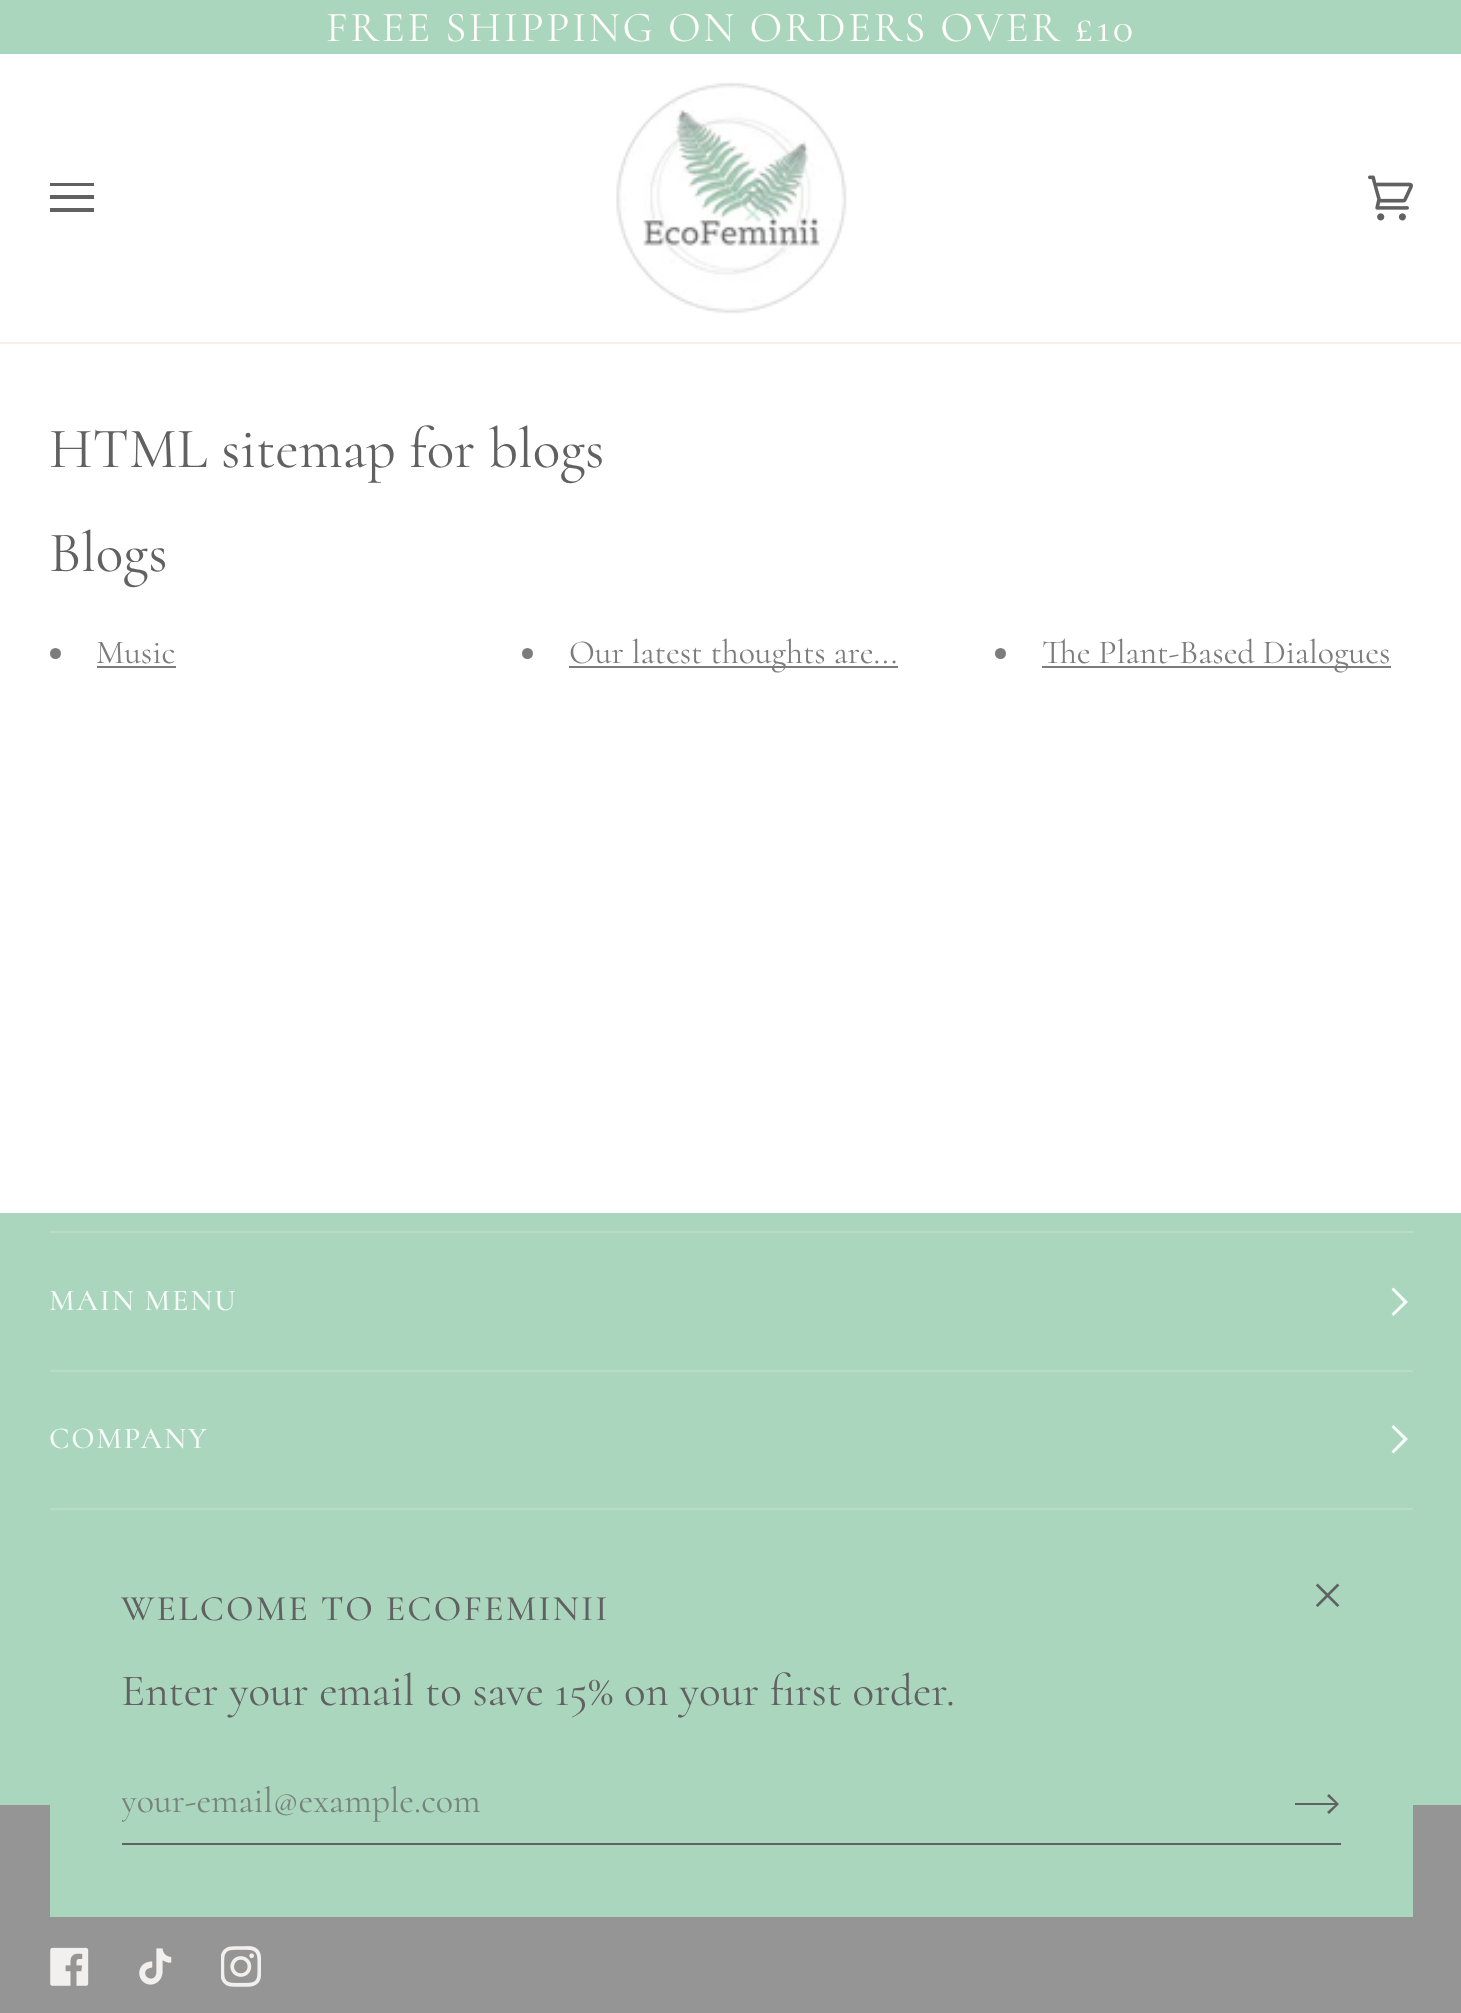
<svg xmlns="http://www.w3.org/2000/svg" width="1461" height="2013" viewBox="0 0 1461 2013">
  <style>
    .t1 { font: 42.75px Cormorant; letter-spacing: 2.55px; fill: #fffcf9; }
    .t2 { font: 57.4px Cormorant; fill: #616161; }
    .t3 { font: 33.75px Cormorant; fill: #7c7c7c; }
    .t4 { font: 500 30.5px Cormorant; letter-spacing: 1.75px; fill: #f7fbf9; }
    .t5 { font: 500 36px Cormorant; letter-spacing: 2.2px; fill: #616161; }
    .t6 { font: 45px Cormorant; fill: #616161; }
    .t7 { font: 36px Cormorant; fill: #77847d; }
  </style>
  <defs>
    <clipPath id="clip1"><rect x="122" y="1778" width="1077" height="45"/></clipPath>
  </defs>
  <rect width="100%" height="100%" fill="#fff"/>
  <rect x="0" y="0" width="1461" height="54" fill="#abd6be"/>
  <text x="326" y="41" class="t1">FREE SHIPPING ON ORDERS OVER £10</text>
  <rect x="0" y="342" width="1461" height="2" fill="#f8f0e7"/>
  <path d="M50 183H94V186H50ZM50 195H94V199H50ZM50 208H94V212H50Z" fill="#616161"/>
  <image x="616" y="82" width="231" height="232" href="images/1.png"/>
  <image x="1368" y="175" width="45" height="46" href="images/2.png"/>
  <text x="49" y="467" class="t2">HTML sitemap for blogs</text>
  <text x="49" y="571" class="t2">Blogs</text>
  <circle cx="55.5" cy="653.5" r="5.5" fill="#7c7c7c"/>
  <text x="96" y="663" class="t3">Music</text>
  <rect x="97" y="666" width="79" height="2" fill="#7c7c7c"/>
  <circle cx="527.5" cy="653.5" r="5.5" fill="#7c7c7c"/>
  <rect x="569" y="666" width="329" height="2" fill="#7c7c7c"/>
  <text x="569" y="663" class="t3">Our latest thoughts are...</text>
  <circle cx="1000.5" cy="653.5" r="5.5" fill="#7c7c7c"/>
  <rect x="1042" y="666" width="349" height="2" fill="#7c7c7c"/>
  <text x="1042" y="663" class="t3">The Plant-Based Dialogues</text>
  <rect x="0" y="1213" width="1461" height="592" fill="#abd6be"/>
  <rect x="50" y="1231" width="1363" height="2" fill="#b8dcc8"/>
  <rect x="50" y="1370" width="1363" height="2" fill="#b8dcc8"/>
  <text x="49" y="1310" class="t4">MAIN MENU</text>
  <path d="M1403.5 1302L1391.5 1289.5L1393.5 1287.5L1408 1302L1393.5 1316L1391.5 1314Z" fill="#f7fbf9" fill-rule="evenodd"/>
  <rect x="50" y="1508" width="1363" height="2" fill="#b8dcc8"/>
  <text x="49" y="1448" class="t4">COMPANY</text>
  <path d="M1403.5 1439L1391.5 1427L1393.5 1425L1408 1439L1393.5 1453.5L1391.5 1451.5Z" fill="#f7fbf9" fill-rule="evenodd"/>
  <rect x="0" y="1805" width="1461" height="208" fill="#959595"/>
  <rect x="50" y="1805" width="1363" height="112" fill="#abd6be"/>
  <text x="121" y="1620" class="t5">WELCOME TO ECOFEMINII</text>
  <image x="1315" y="1583" width="25" height="24" href="images/3.png"/>
  <text x="121" y="1705" class="t6">Enter your email to save 15% on your first order.</text>
  <rect x="122" y="1843" width="1219" height="2" fill="#616161"/>
  <g clip-path="url(#clip1)">
    <text x="121" y="1812" class="t7">your-email@example.com</text>
  </g>
  <path d="M1327 1796L1329 1794L1339 1804L1329 1814L1327 1812L1335 1805H1295V1803H1335Z" fill="#616161"/>
  <image x="50" y="1947" width="39" height="39" href="images/4.png"/>
  <image x="139" y="1948" width="33" height="37" href="images/5.png"/>
  <image x="221" y="1946" width="40" height="41" href="images/6.png"/>
</svg>
